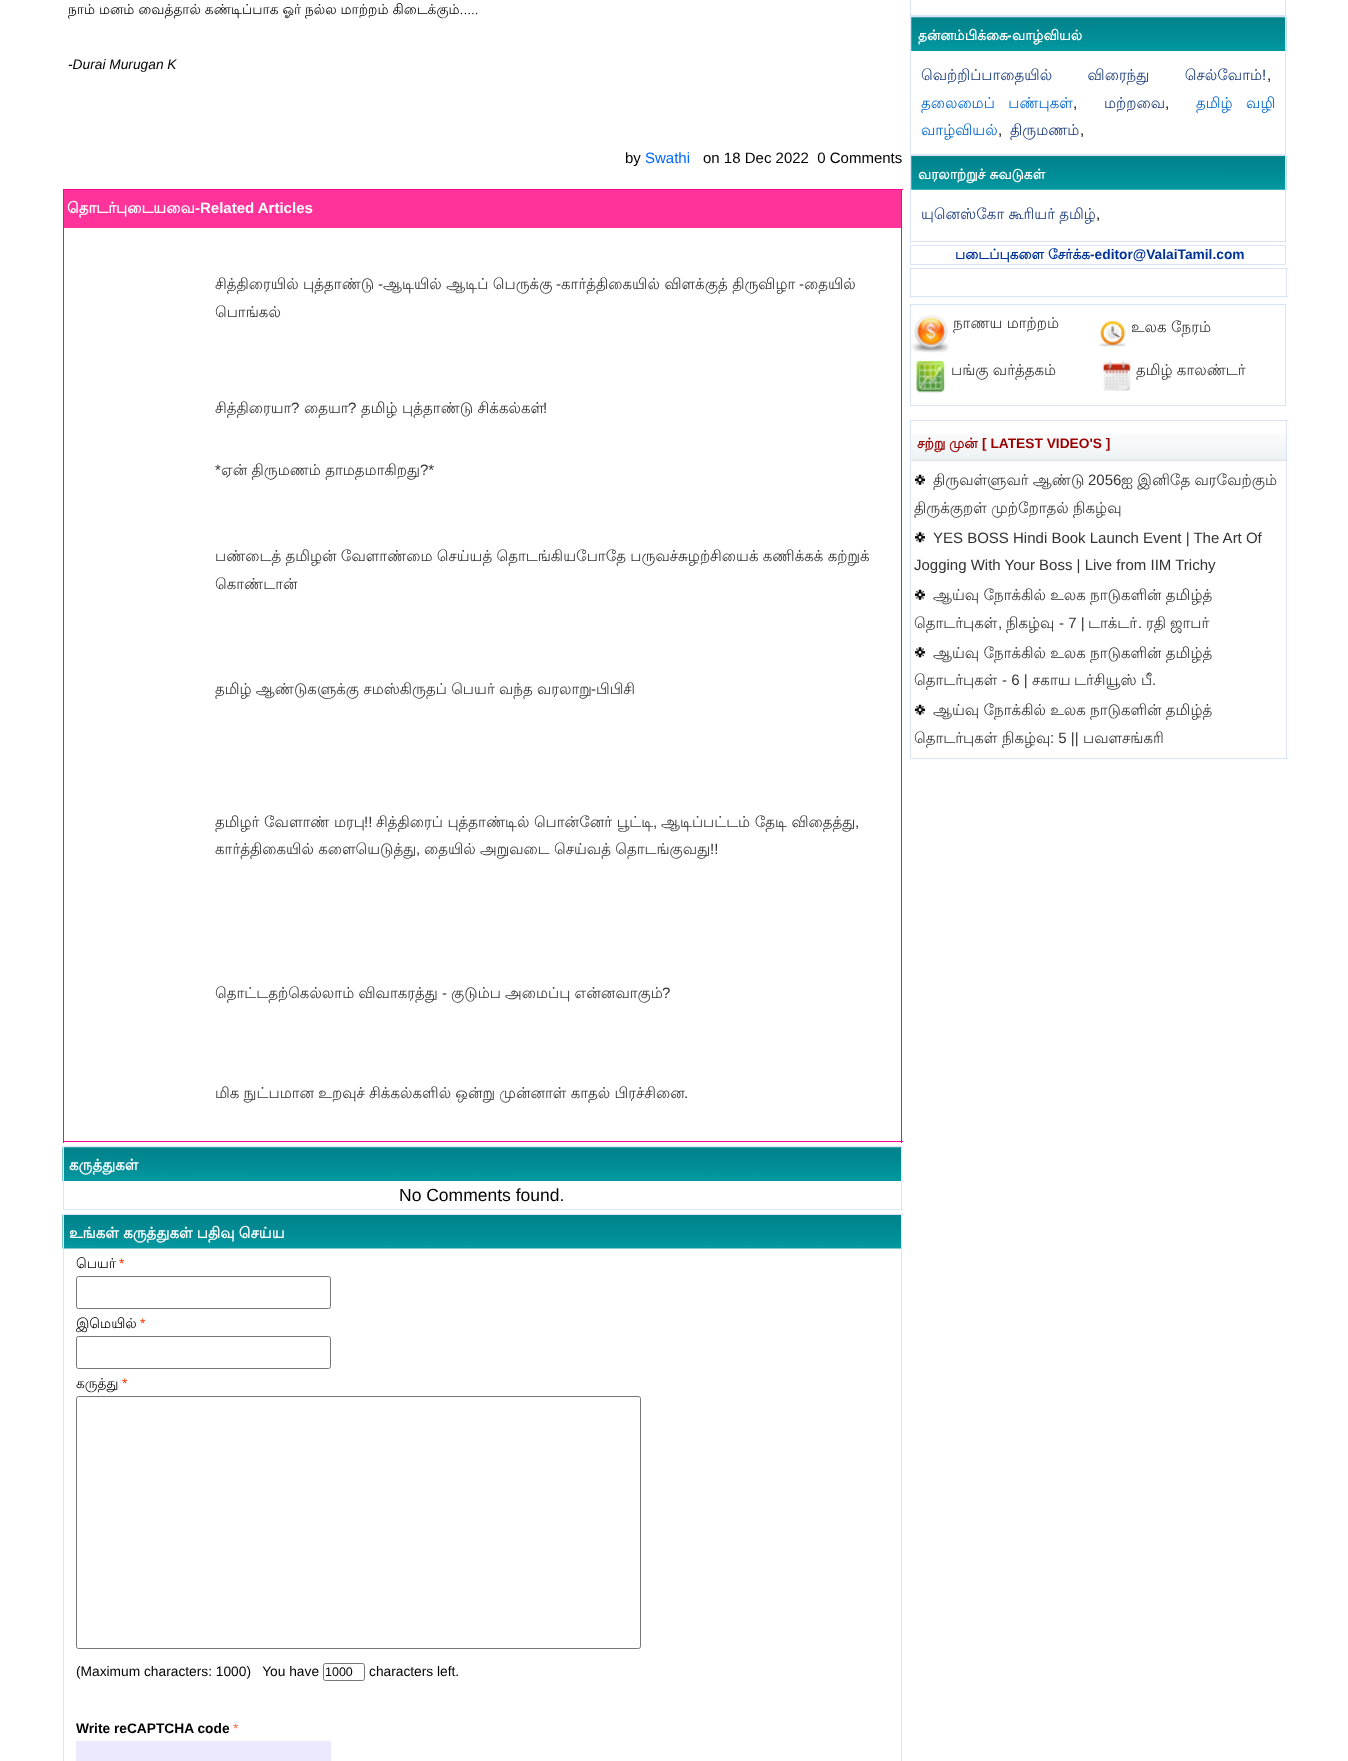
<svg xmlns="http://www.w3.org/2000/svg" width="1348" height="1761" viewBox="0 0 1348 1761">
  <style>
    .t1 { font: 13.75px Lohit Tamil; fill: #000; }
    .t2 { font: italic 13.75px Liberation Sans; fill: #000; }
    .t3 { font: 15px Liberation Sans; fill: #000; }
    .t4 { font: 15px Liberation Sans; fill: #06f; }
    .t5 { font: bold 15px Lohit Tamil; fill: #fff; }
    .t6 { font: bold 15px Liberation Sans; fill: #fff; }
    .t7 { font: 15px Lohit Tamil; fill: #333; }
    .t8 { font: 15px Liberation Sans; fill: #333; }
    .t9 { font: 17.5px Liberation Sans; fill: #000; }
    .t10 { font: 13.75px Liberation Sans; fill: #f30; }
    .t11 { font: 13.75px Liberation Sans; fill: #000; }
    .t12 { font: 12.5px Liberation Sans; fill: #000; }
    .t13 { font: bold 13.75px Liberation Sans; fill: #000; }
    .t14 { font: 13.75px Liberation Sans; fill: #fb6c4c; }
    .t15 { font: bold 13.75px Lohit Tamil; fill: #fff; }
    .t16 { font: bold 13.75px Liberation Sans; fill: #fff; }
    .t17 { font: 15px Lohit Tamil; fill: #16387c; }
    .t18 { font: 15px Liberation Sans; fill: #16387c; }
    .t19 { font: 15px Lohit Tamil; fill: #06c; }
    .t20 { font: bold 13.75px Lohit Tamil; fill: #039; }
    .t21 { font: bold 13.75px Liberation Sans; fill: #039; }
    .t22 { font: bold 13.75px Lohit Tamil; fill: #900; }
    .t23 { font: bold 13.75px Liberation Sans; fill: #900; }
  </style>
  <rect width="100%" height="100%" fill="#fff"/>
  <text x="68" y="14" word-spacing="-0.25" class="t1">நாம் மனம் வைத்தால் கண்டிப்பாக ஓர் நல்ல மாற்றம் கிடைக்கும்.....</text>
  <text x="68" y="69" class="t2">-Durai Murugan K</text>
  <text x="625" y="163" class="t3">by</text>
  <text x="645" y="163" class="t4">Swathi</text>
  <text x="703" y="163" class="t3" xml:space="preserve">on 18 Dec 2022  0 Comments</text>
  <rect x="63" y="189" width="840" height="1" fill="#f09"/>
  <rect x="901" y="189" width="1" height="954" fill="#f09"/>
  <rect x="63" y="1141" width="840" height="1" fill="#f09"/>
  <rect x="63" y="189" width="1" height="954" fill="#f09"/>
  <rect x="64" y="190" width="837" height="38" fill="#f39"/>
  <text x="67" y="213" class="t5">தொடர்புடையவை</text>
  <text x="195" y="213" class="t6">-Related Articles</text>
  <text x="215" y="289" class="t7">சித்திரையில் புத்தாண்டு</text>
  <text x="378" y="289" class="t8">-</text>
  <text x="383" y="289" class="t7">ஆடியில் ஆடிப் பெருக்கு</text>
  <text x="556" y="289" class="t8">-</text>
  <text x="561" y="289" class="t7">கார்த்திகையில் விளக்குத் திருவிழா</text>
  <text x="799" y="289" class="t8">-</text>
  <text x="804" y="289" class="t7">தையில்</text>
  <text x="215" y="317" class="t7">பொங்கல்</text>
  <text x="215" y="413" class="t7">சித்திரையா</text>
  <text x="291" y="413" class="t8">?</text>
  <text x="304" y="413" class="t7">தையா</text>
  <text x="348" y="413" class="t8">?</text>
  <text x="361" y="413" class="t7">தமிழ் புத்தாண்டு சிக்கல்கள்</text>
  <text x="543" y="413" class="t8">!</text>
  <text x="215" y="475" class="t8">*</text>
  <text x="221" y="475" word-spacing="-0.25" class="t7">ஏன் திருமணம் தாமதமாகிறது</text>
  <text x="420" y="475" class="t8">?*</text>
  <text x="215" y="561" word-spacing="-0.25" class="t7">பண்டைத் தமிழன் வேளாண்மை செய்யத் தொடங்கியபோதே பருவச்சுழற்சியைக் கணிக்கக் கற்றுக்</text>
  <text x="215" y="589" class="t7">கொண்டான்</text>
  <text x="215" y="694" word-spacing="-0.25" class="t7">தமிழ் ஆண்டுகளுக்கு சமஸ்கிருதப் பெயர் வந்த வரலாறு</text>
  <text x="591" y="694" class="t8">-</text>
  <text x="596" y="694" class="t7">பிபிசி</text>
  <text x="215" y="827" class="t7">தமிழர் வேளாண் மரபு</text>
  <text x="364" y="827" class="t8">!!</text>
  <text x="376" y="827" class="t7">சித்திரைப் புத்தாண்டில் பொன்னேர் பூட்டி</text>
  <text x="653" y="827" class="t8">,</text>
  <text x="661" y="827" class="t7">ஆடிப்பட்டம் தேடி விதைத்து</text>
  <text x="855" y="827" class="t8">,</text>
  <text x="215" y="854" word-spacing="-0.25" class="t7">கார்த்திகையில் களையெடுத்து</text>
  <text x="416" y="854" class="t8">,</text>
  <text x="424" y="854" word-spacing="-0.25" class="t7">தையில் அறுவடை செய்வத் தொடங்குவது</text>
  <text x="710" y="854" class="t8">!!</text>
  <text x="215" y="998" word-spacing="-0.25" class="t7">தொட்டதற்கெல்லாம் விவாகரத்து</text>
  <text x="442" y="998" class="t8">-</text>
  <text x="451" y="998" word-spacing="-0.25" class="t7">குடும்ப அமைப்பு என்னவாகும்</text>
  <text x="662" y="998" class="t8">?</text>
  <text x="215" y="1098" word-spacing="-0.25" class="t7">மிக நுட்பமான உறவுச் சிக்கல்களில் ஒன்று முன்னாள் காதல் பிரச்சினை</text>
  <text x="684" y="1098" class="t8">.</text>
  <rect x="63" y="1146" width="840" height="1" fill="#d9e4f7"/>
  <rect x="901" y="1146" width="1" height="64" fill="#d9e4f7"/>
  <rect x="63" y="1209" width="840" height="1" fill="#d9e4f7"/>
  <image x="62" y="1147" width="839" height="34" href="images/1.png"/>
  <rect x="63" y="1146" width="1" height="64" fill="#d9e4f7"/>
  <text x="69" y="1170" class="t5">கருத்துகள்</text>
  <text x="399" y="1201" class="t9">No Comments found.</text>
  <image x="62" y="1214" width="839" height="35" href="images/2.png"/>
  <rect x="63" y="1214" width="840" height="1" fill="#d9e4f7"/>
  <rect x="901" y="1214" width="1" height="547" fill="#d9e4f7"/>
  <rect x="63" y="1214" width="1" height="547" fill="#d9e4f7"/>
  <text x="69" y="1238" word-spacing="-0.25" class="t5">உங்கள் கருத்துகள் பதிவு செய்ய</text>
  <text x="76" y="1268" class="t1">பெயர்</text>
  <text x="119" y="1268" class="t10">*</text>
  <rect x="76.5" y="1276.5" width="254" height="32" rx="2" fill="none" stroke="#767676"/>
  <text x="76" y="1328" class="t1">இமெயில்</text>
  <text x="140" y="1328" class="t10">*</text>
  <rect x="76.5" y="1336.5" width="254" height="32" rx="2" fill="none" stroke="#767676"/>
  <text x="76" y="1388" class="t1">கருத்து</text>
  <text x="122" y="1388" class="t10">*</text>
  <rect x="76.5" y="1396.5" width="564" height="252" rx="2" fill="none" stroke="#767676"/>
  <text x="76" y="1676" class="t11" xml:space="preserve">(Maximum characters: 1000)   You have</text>
  <rect x="323.5" y="1663.5" width="41" height="17" rx="2" fill="none" stroke="#767676"/>
  <text x="325" y="1676" class="t12">1000</text>
  <text x="369" y="1676" class="t11">characters left.</text>
  <text x="76" y="1733" class="t13">Write reCAPTCHA code</text>
  <text x="233" y="1733" class="t14">*</text>
  <rect x="76" y="1741" width="255" height="20" fill="#ece9fe"/>
  <rect x="1285" y="0" width="1" height="16" fill="#d9e4f7"/>
  <rect x="910" y="15" width="376" height="2" fill="#d9e4f7"/>
  <rect x="910" y="0" width="1" height="16" fill="#d9e4f7"/>
  <image x="911" y="17" width="376" height="34" href="images/3.png"/>
  <rect x="1285" y="16" width="1" height="139" fill="#d9e4f7"/>
  <rect x="910" y="154" width="376" height="2" fill="#d9e4f7"/>
  <rect x="910" y="16" width="1" height="139" fill="#d9e4f7"/>
  <text x="918" y="40" class="t15">தன்னம்பிக்கை</text>
  <text x="1007" y="40" class="t16">-</text>
  <text x="1012" y="40" class="t15">வாழ்வியல்</text>
  <text x="921" y="80" word-spacing="31" class="t17">வெற்றிப்பாதையில் விரைந்து செல்வோம்</text>
  <text x="1262" y="80" class="t18">!</text>
  <text x="1267" y="80" class="t3">,</text>
  <text x="921" y="108" word-spacing="9" class="t19">தலைமைப் பண்புகள்</text>
  <text x="1073" y="108" class="t3">,</text>
  <text x="1104" y="108" class="t17">மற்றவை</text>
  <text x="1165" y="108" class="t3">,</text>
  <text x="1196" y="108" word-spacing="9" class="t19">தமிழ் வழி</text>
  <text x="921" y="135" class="t19">வாழ்வியல்</text>
  <text x="998" y="135" class="t3">,</text>
  <text x="1010" y="135" class="t17">திருமணம்</text>
  <text x="1080" y="135" class="t3">,</text>
  <image x="911" y="156" width="376" height="34" href="images/4.png"/>
  <rect x="1285" y="155" width="1" height="88" fill="#d9e4f7"/>
  <rect x="910" y="241" width="376" height="1" fill="#d9e4f7"/>
  <rect x="910" y="155" width="1" height="88" fill="#d9e4f7"/>
  <text x="918" y="179" class="t15">வரலாற்றுச் சுவடுகள்</text>
  <text x="921" y="219" word-spacing="-0.25" class="t17">யுனெஸ்கோ கூரியர் தமிழ்</text>
  <text x="1096" y="219" class="t3">,</text>
  <rect x="910" y="245" width="376" height="1" fill="#d9e4f7"/>
  <rect x="1285" y="245" width="1" height="20" fill="#d9e4f7"/>
  <rect x="910" y="264" width="376" height="1" fill="#d9e4f7"/>
  <rect x="910" y="245" width="1" height="20" fill="#d9e4f7"/>
  <text x="955" y="259" class="t20">படைப்புகளை சேர்க்க</text>
  <text x="1090" y="259" class="t21">-editor@ValaiTamil.com</text>
  <rect x="910" y="268" width="378" height="1" fill="#d9e4f7"/>
  <rect x="1286" y="268" width="1" height="30" fill="#d9e4f7"/>
  <rect x="910" y="296" width="378" height="1" fill="#d9e4f7"/>
  <rect x="910" y="268" width="1" height="30" fill="#d9e4f7"/>
  <rect x="910" y="304" width="376" height="1" fill="#d9e4f7"/>
  <rect x="1285" y="304" width="1" height="102" fill="#d9e4f7"/>
  <rect x="910" y="405" width="376" height="1" fill="#d9e4f7"/>
  <rect x="910" y="304" width="1" height="102" fill="#d9e4f7"/>
  <image x="911" y="315" width="38" height="38" href="images/5.png"/>
  <text x="953" y="328" word-spacing="-0.25" class="t7">நாணய மாற்றம்</text>
  <image x="1099" y="320" width="27" height="27" href="images/6.png"/>
  <text x="1131" y="332" word-spacing="-0.25" class="t7">உலக நேரம்</text>
  <image x="915" y="361" width="31" height="32" href="images/7.png"/>
  <text x="951" y="375" word-spacing="-0.25" class="t7">பங்கு வர்த்தகம்</text>
  <image x="1101" y="361" width="32" height="30" href="images/8.png"/>
  <text x="1136" y="375" word-spacing="-0.25" class="t7">தமிழ் காலண்டர்</text>
  <rect x="910" y="420" width="378" height="1" fill="#d9e4f7"/>
  <rect x="1286" y="420" width="1" height="339" fill="#d9e4f7"/>
  <rect x="910" y="758" width="378" height="1" fill="#d9e4f7"/>
  <rect x="910" y="420" width="1" height="339" fill="#d9e4f7"/>
  <image x="911" y="434" width="375" height="28" href="images/9.png"/>
  <text x="917" y="448" class="t22">சற்று</text>
  <text x="949" y="448" class="t22">முன்</text>
  <text x="982" y="448" class="t23">[ LATEST VIDEO'S ]</text>
  <image x="915" y="474" width="10" height="11" href="images/10.png"/>
  <text x="933" y="485" word-spacing="-0.25" class="t7">திருவள்ளுவர் ஆண்டு</text>
  <text x="1088" y="485" class="t8">2056</text>
  <text x="1121" y="485" word-spacing="-0.25" class="t7">ஐ இனிதே வரவேற்கும்</text>
  <text x="914" y="513" word-spacing="-0.25" class="t7">திருக்குறள் முற்றோதல் நிகழ்வு</text>
  <image x="915" y="532" width="10" height="11" href="images/11.png"/>
  <text x="933" y="543" class="t8">YES BOSS Hindi Book Launch Event | The Art Of</text>
  <text x="914" y="570" class="t8">Jogging With Your Boss | Live from IIM Trichy</text>
  <image x="915" y="589" width="10" height="11" href="images/10.png"/>
  <text x="933" y="600" word-spacing="-0.25" class="t7">ஆய்வு நோக்கில் உலக நாடுகளின் தமிழ்த்</text>
  <text x="914" y="628" class="t7">தொடர்புகள்</text>
  <text x="998" y="628" class="t8">,</text>
  <text x="1006" y="628" class="t7">நிகழ்வு</text>
  <text x="1059" y="628" class="t8">- 7 |</text>
  <text x="1088" y="628" class="t7">டாக்டர்</text>
  <text x="1138" y="628" class="t8">.</text>
  <text x="1146" y="628" class="t7">ரதி</text>
  <text x="1170" y="628" class="t7">ஜாபர்</text>
  <image x="915" y="647" width="10" height="11" href="images/11.png"/>
  <text x="933" y="658" word-spacing="-0.25" class="t7">ஆய்வு நோக்கில் உலக நாடுகளின் தமிழ்த்</text>
  <text x="914" y="685" class="t7">தொடர்புகள்</text>
  <text x="1002" y="685" class="t8">- 6 |</text>
  <text x="1032" y="685" class="t7">சகாய</text>
  <text x="1074" y="685" class="t7">டர்சியூஸ்</text>
  <text x="1141" y="685" class="t7">பீ</text>
  <text x="1152" y="685" class="t8">.</text>
  <image x="915" y="704" width="10" height="11" href="images/10.png"/>
  <text x="933" y="715" word-spacing="-0.25" class="t7">ஆய்வு நோக்கில் உலக நாடுகளின் தமிழ்த்</text>
  <text x="914" y="743" class="t7">தொடர்புகள்</text>
  <text x="1002" y="743" class="t7">நிகழ்வு</text>
  <text x="1050" y="743" class="t8">: 5 ||</text>
  <text x="1083" y="743" class="t7">பவளசங்கரி</text>
</svg>
